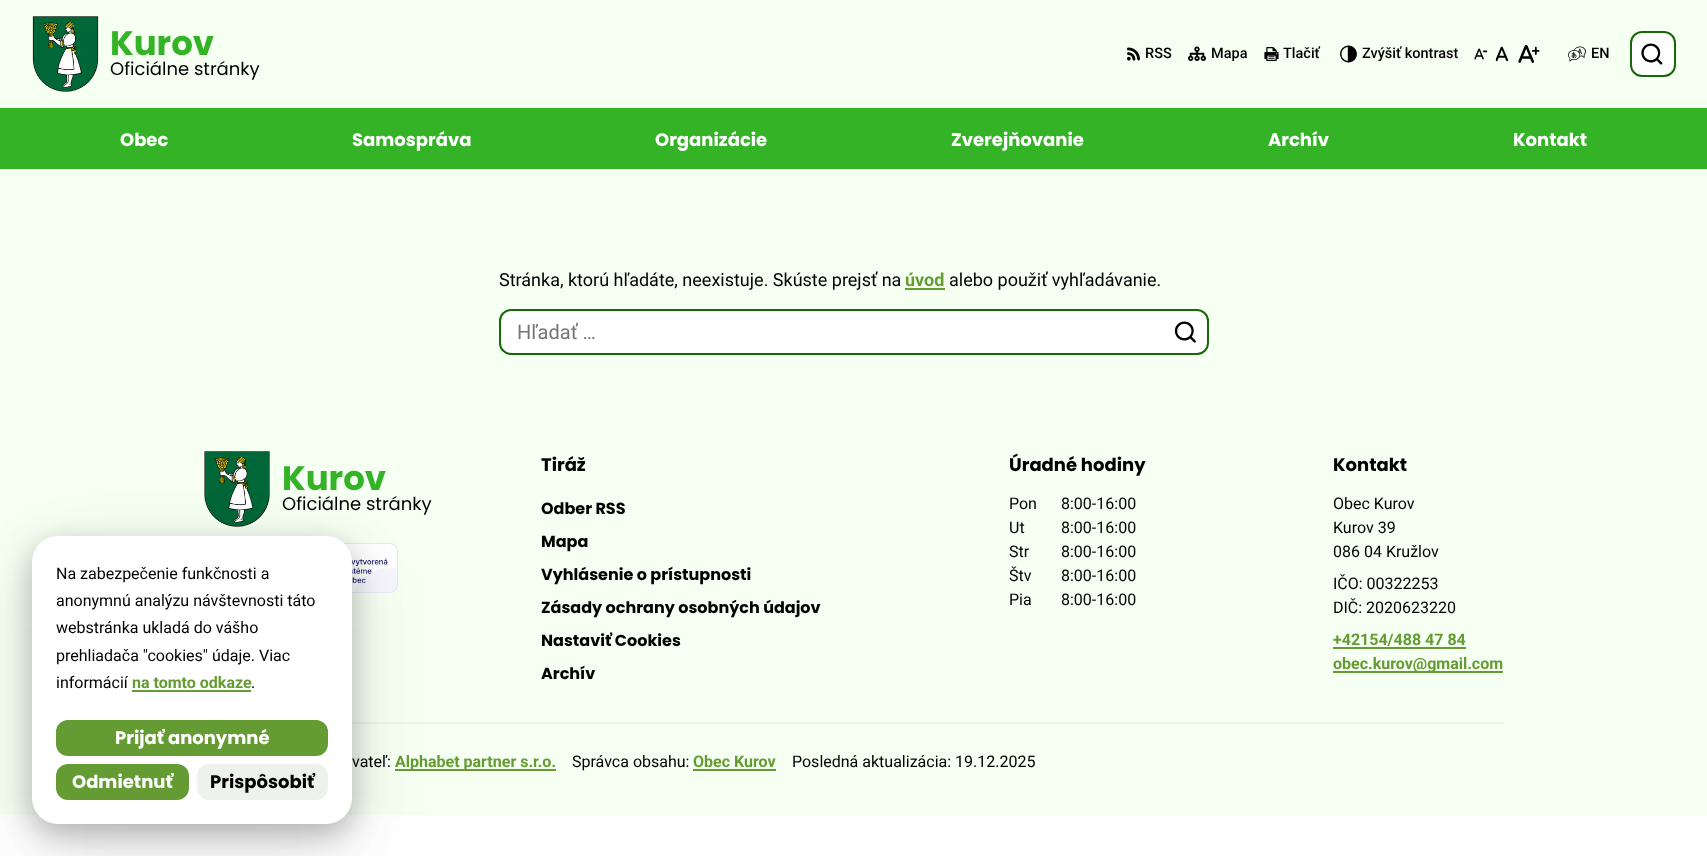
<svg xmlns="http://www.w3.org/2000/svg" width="1707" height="856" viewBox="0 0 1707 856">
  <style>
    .t1 { font: bold 34px Poppins; fill: #33b325; }
    .t2 { font: 18px Poppins; fill: #000; }
    .t3 { font: 500 14.5px Roboto; fill: #000; }
    .t4 { font: bold 18px Poppins; fill: #fff; }
    .t5 { font: 18px Roboto; fill: #000; }
    .t6 { font: bold 18px Roboto; fill: #659b33; }
    .t7 { font: 20px Roboto; fill: #757575; }
    .t8 { font: bold 18px Poppins; fill: #000; }
    .t9 { font: bold 16px Poppins; fill: #000; }
    .t10 { font: 16px Roboto; fill: #000; }
    .t11 { font: bold 16px Roboto; fill: #659b33; }
  </style>
  <rect width="100%" height="100%" fill="#fff"/>
  <rect x="0" y="0" width="1707" height="815" fill="#f5fff2"/>
  <image x="32" y="16" width="67" height="76" href="images/1.png"/>
  <text x="110" y="55" class="t1">Kurov</text>
  <text x="110" y="75" class="t2">Oficiálne stránky</text>
  <image x="1127" y="47" width="13" height="14" href="images/2.png"/>
  <text x="1145" y="58" class="t3">RSS</text>
  <image x="1188" y="46" width="18" height="15" href="images/3.png"/>
  <text x="1211" y="58" class="t3">Mapa</text>
  <image x="1264" y="47" width="15" height="14" href="images/4.png"/>
  <text x="1283" y="58" class="t3">Tlačiť</text>
  <image x="1340" y="45" width="17" height="18" href="images/5.png"/>
  <text x="1362" y="58" class="t3">Zvýšiť kontrast</text>
  <image x="1474" y="48" width="14" height="12" href="images/6.png"/>
  <image x="1495" y="46" width="13" height="16" href="images/7.png"/>
  <image x="1518" y="45" width="22" height="18" href="images/8.png"/>
  <image x="1568" y="46" width="18" height="16" href="images/9.png"/>
  <text x="1591" y="58" class="t3">EN</text>
  <rect x="1631" y="32" width="44" height="44" rx="11" fill="#fff" stroke="#18680a" stroke-width="2"/>
  <image x="1641" y="43" width="22" height="22" href="images/10.png"/>
  <rect x="0" y="108" width="1707" height="61" fill="#33b325"/>
  <text x="120" y="146" class="t4">Obec</text>
  <text x="352" y="146" class="t4">Samospráva</text>
  <text x="655" y="146" class="t4">Organizácie</text>
  <text x="951" y="146" class="t4">Zverejňovanie</text>
  <text x="1268" y="146" class="t4">Archív</text>
  <text x="1513" y="146" class="t4">Kontakt</text>
  <text x="499" y="286" class="t5">Stránka, ktorú hľadáte, neexistuje. Skúste prejsť na</text>
  <text x="905" y="286" class="t6">úvod</text>
  <rect x="905" y="288" width="40" height="2" fill="#659b33"/>
  <text x="949" y="286" class="t5">alebo použiť vyhľadávanie.</text>
  <rect x="500" y="310" width="708" height="44" rx="11" fill="#fff" stroke="#18680a" stroke-width="2"/>
  <text x="517" y="339" class="t7">Hľadať …</text>
  <image x="1174" y="321" width="22" height="22" href="images/11.png"/>
  <image x="204" y="451" width="66" height="76" href="images/12.png"/>
  <text x="282" y="490" class="t1">Kurov</text>
  <text x="282" y="510" class="t2">Oficiálne stránky</text>
  <image x="343" y="543" width="55" height="50" href="images/13.png"/>
  <text x="541" y="471" class="t8">Tiráž</text>
  <text x="541" y="514" class="t9">Odber RSS</text>
  <text x="541" y="547" class="t9">Mapa</text>
  <text x="541" y="580" class="t9">Vyhlásenie o prístupnosti</text>
  <text x="541" y="613" class="t9">Zásady ochrany osobných údajov</text>
  <text x="541" y="646" class="t9">Nastaviť Cookies</text>
  <text x="541" y="679" class="t9">Archív</text>
  <text x="1009" y="471" class="t8">Úradné hodiny</text>
  <text x="1009" y="509" class="t10">Pon</text>
  <text x="1061" y="509" class="t10">8:00-16:00</text>
  <text x="1009" y="533" class="t10">Ut</text>
  <text x="1061" y="533" class="t10">8:00-16:00</text>
  <text x="1009" y="557" class="t10">Str</text>
  <text x="1061" y="557" class="t10">8:00-16:00</text>
  <text x="1009" y="581" class="t10">Štv</text>
  <text x="1061" y="581" class="t10">8:00-16:00</text>
  <text x="1009" y="605" class="t10">Pia</text>
  <text x="1061" y="605" class="t10">8:00-16:00</text>
  <text x="1333" y="471" class="t8">Kontakt</text>
  <text x="1333" y="509" class="t10">Obec Kurov</text>
  <text x="1333" y="533" class="t10">Kurov 39</text>
  <text x="1333" y="557" class="t10">086 04 Kružlov</text>
  <text x="1333" y="589" class="t10">IČO: 00322253</text>
  <text x="1333" y="613" class="t10">DIČ: 2020623220</text>
  <text x="1333" y="645" class="t11">+42154/488 47 84</text>
  <rect x="1333" y="647" width="133" height="2" fill="#659b33"/>
  <rect x="1333" y="671" width="170" height="2" fill="#659b33"/>
  <text x="1333" y="669" class="t11">obec.kurov@gmail.com</text>
  <rect x="352" y="722" width="1152" height="2" fill="#edf3ec"/>
  <text x="352" y="767" class="t10">vateľ:</text>
  <rect x="395" y="769" width="161" height="2" fill="#659b33"/>
  <text x="395" y="767" class="t11">Alphabet partner s.r.o.</text>
  <text x="572" y="767" class="t10">Správca obsahu:</text>
  <text x="693" y="767" class="t11">Obec Kurov</text>
  <rect x="693" y="769" width="83" height="2" fill="#659b33"/>
  <text x="792" y="767" class="t10">Posledná aktualizácia: 19.12.2025</text>
  <rect x="32" y="566" width="320" height="288" rx="26" fill="#0000000d" filter="blur(45px)"/>
  <rect x="32" y="556" width="320" height="288" rx="26" fill="#0000000d" filter="blur(30px)"/>
  <rect x="32" y="546" width="320" height="288" rx="26" fill="#00000040" filter="blur(15px)"/>
  <rect x="32" y="536" width="320" height="288" rx="26" fill="#fff"/>
  <text x="56" y="579" class="t10">Na zabezpečenie funkčnosti a</text>
  <text x="56" y="606" class="t10">anonymnú analýzu návštevnosti táto</text>
  <text x="56" y="633" class="t10">webstránka ukladá do vášho</text>
  <text x="56" y="661" class="t10">prehliadača "cookies" údaje. Viac</text>
  <text x="56" y="688" class="t10">informácií</text>
  <text x="132" y="688" class="t11">na tomto odkaze</text>
  <rect x="132" y="690" width="119" height="2" fill="#659b33"/>
  <text x="251" y="688" class="t10">.</text>
  <rect x="56" y="720" width="272" height="36" rx="12" fill="#659b33"/>
  <text x="115" y="744" class="t4">Prijať anonymné</text>
  <rect x="56" y="764" width="133" height="36" rx="12" fill="#659b33"/>
  <text x="72" y="788" class="t4">Odmietnuť</text>
  <rect x="197" y="764" width="131" height="36" rx="12" fill="#edf3ec"/>
  <text x="210" y="788" class="t8">Prispôsobiť</text>
</svg>
